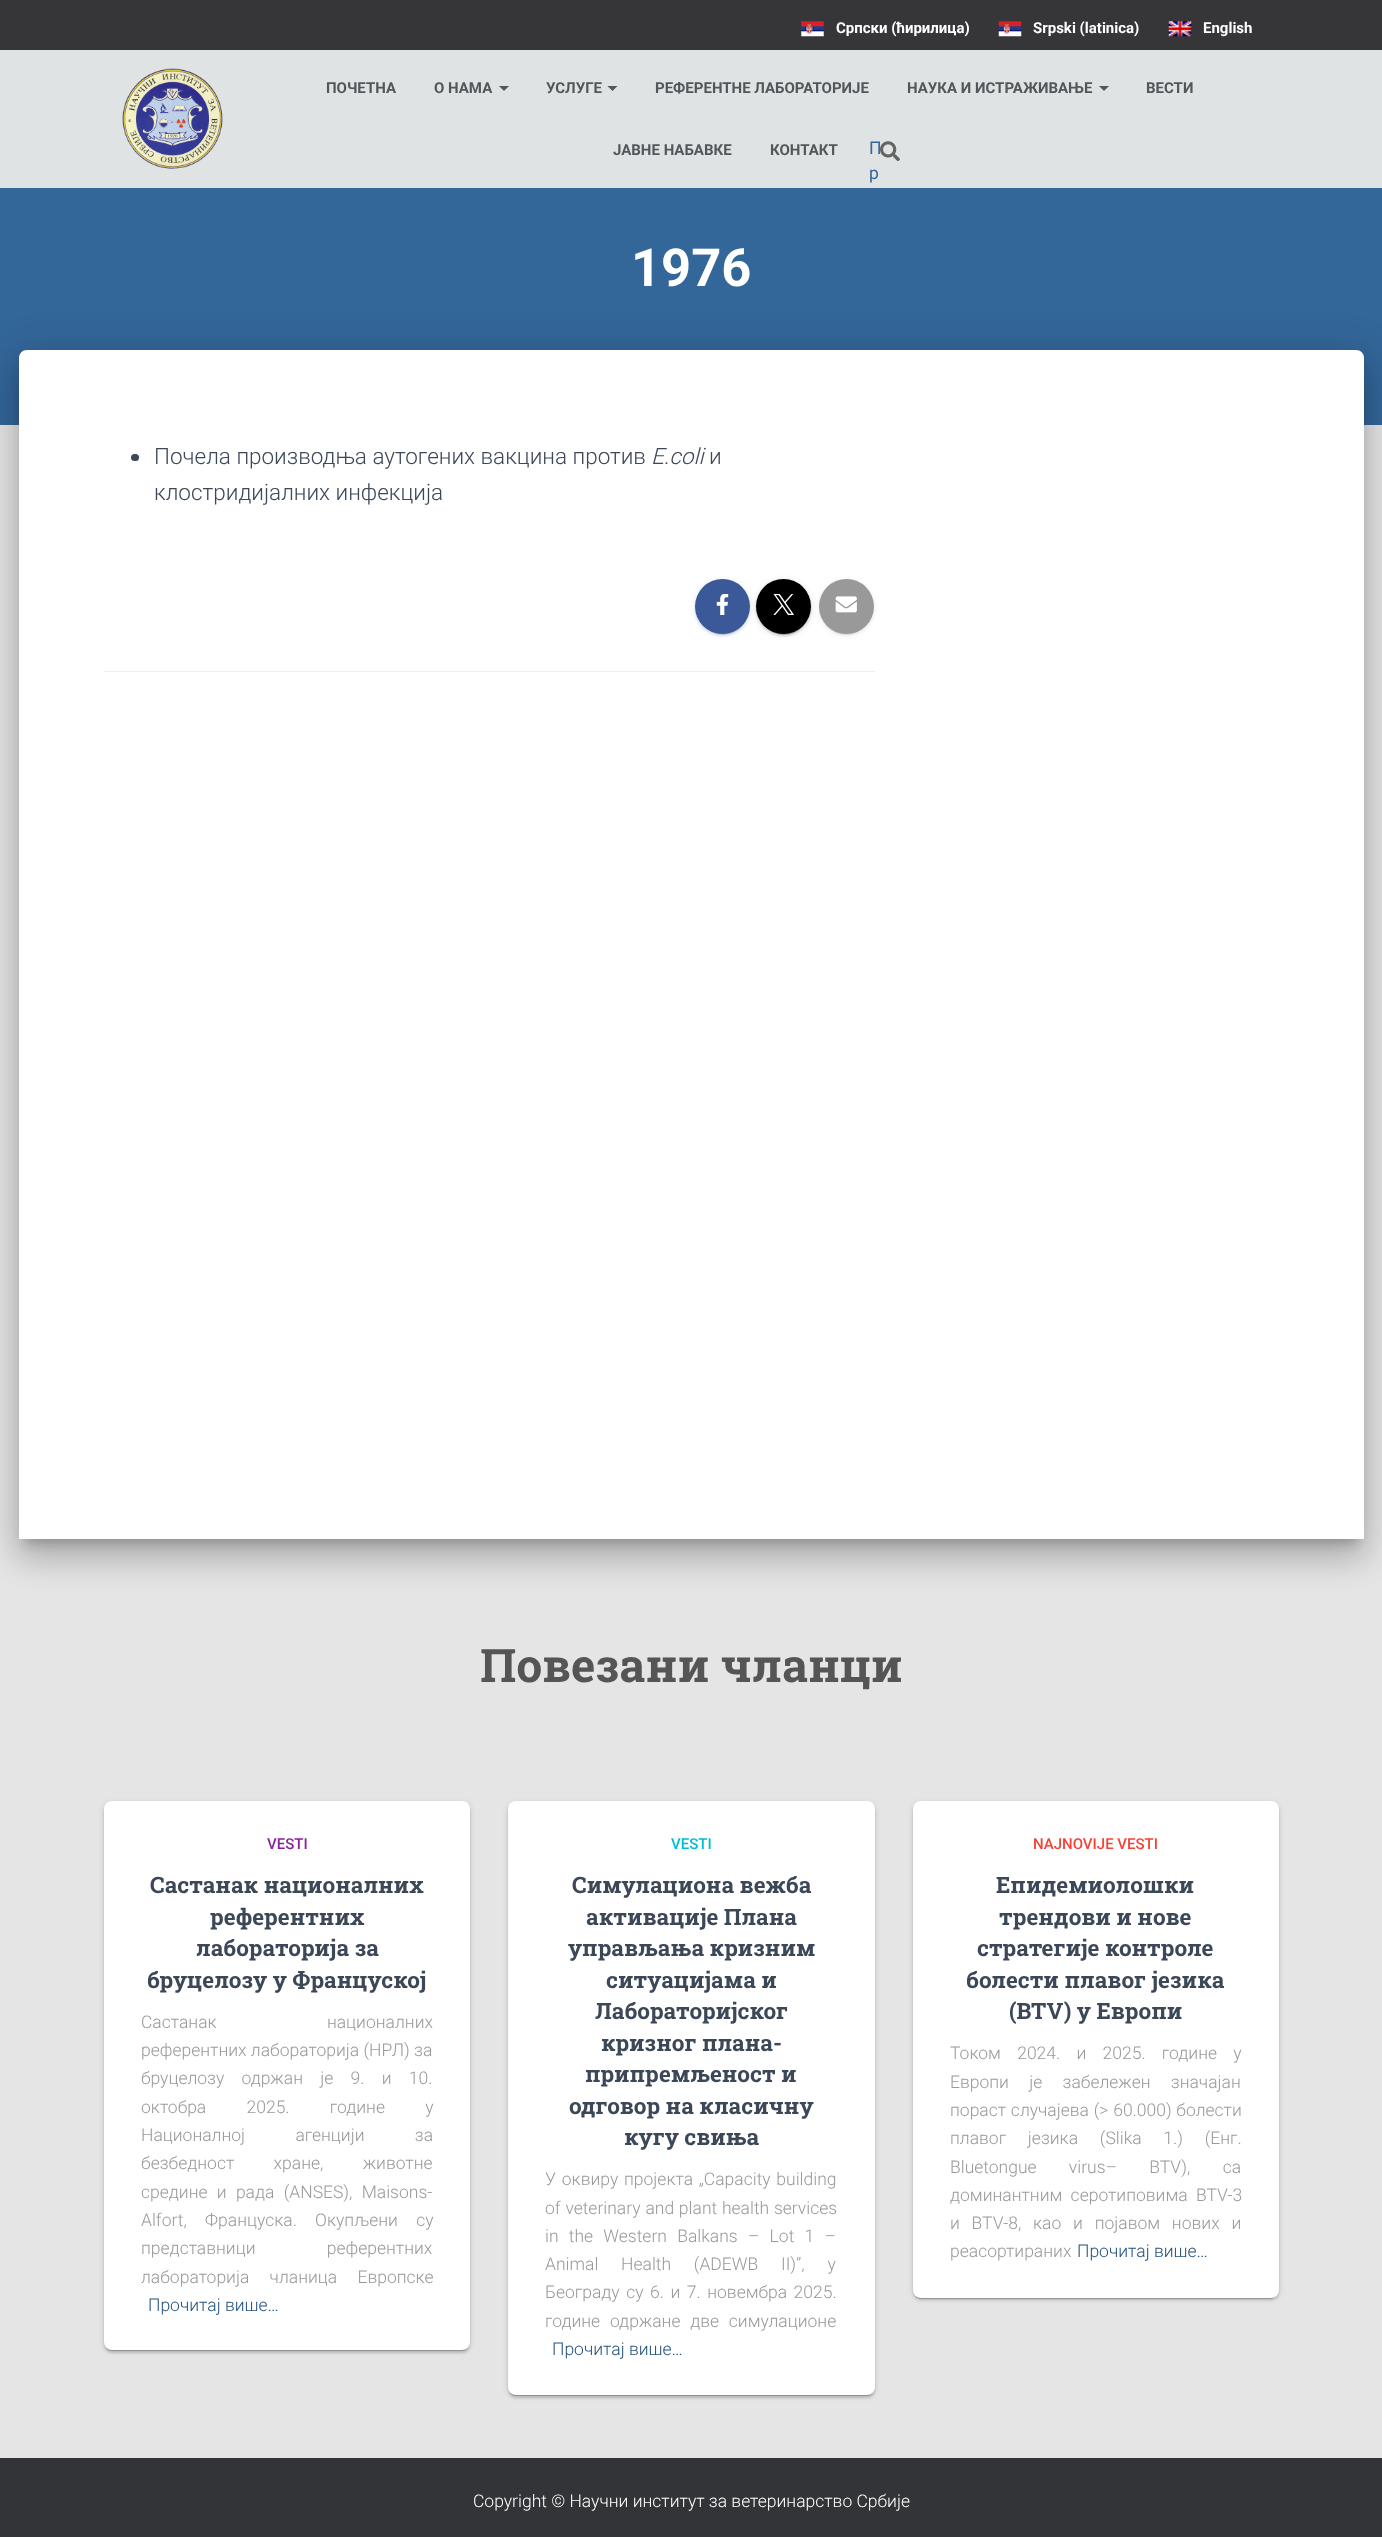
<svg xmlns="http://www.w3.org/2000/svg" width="1382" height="2537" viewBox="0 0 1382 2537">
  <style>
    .t1 { font: bold 15px Roboto; fill: #fff; }
    .t2 { font: bold 15px Roboto; fill: #52575c; }
    .t3 { font: 17.5px Roboto; fill: #369; }
    .t4 { font: bold 52.5px Roboto; fill: #fff; }
    .t5 { font: 300 22.5px Roboto; fill: #3c4858; }
    .t6 { font: italic 300 22.5px Roboto; fill: #3c4858; }
    .t7 { font: bold 46.25px Roboto Slab; fill: #555; }
    .t8 { font: 500 15px Roboto; fill: #89229b; }
    .t9 { font: bold 22.5px Roboto Slab; fill: #3c4858; }
    .t10 { font: 300 17.5px Roboto; fill: #999; }
    .t11 { font: 300 17.5px Roboto; fill: #23527c; }
    .t12 { font: 500 15px Roboto; fill: #00bcd4; }
    .t13 { font: 500 15px Roboto; fill: #f44336; }
    .t14 { font: 300 17.5px Roboto; fill: #fff; }
  </style>
  <rect width="100%" height="100%" fill="#e5e5e5"/>
  <rect x="0" y="0" width="1382" height="50" fill="#363537"/>
  <image x="801" y="21" width="23" height="16" href="images/1.png"/>
  <text x="836" y="33" class="t1">Српски (ћирилица)</text>
  <image x="998" y="21" width="24" height="16" href="images/2.png"/>
  <text x="1033" y="33" class="t1">Srpski (latinica)</text>
  <image x="1168" y="21" width="24" height="16" href="images/3.png"/>
  <text x="1203" y="33" class="t1">English</text>
  <rect x="0" y="50" width="1382" height="138" fill="#dfe3e3"/>
  <image x="122" y="68" width="101" height="101" href="images/4.png"/>
  <text x="326" y="93" class="t2">ПОЧЕТНА</text>
  <text x="434" y="93" class="t2">О НАМА</text>
  <path d="M499 86H509L504 91Z" fill="#52575c"/>
  <text x="546" y="93" class="t2">УСЛУГЕ</text>
  <path d="M607.5 86H617.5L612.5 91Z" fill="#52575c"/>
  <text x="655" y="93" class="t2">РЕФЕРЕНТНЕ ЛАБОРАТОРИЈЕ</text>
  <text x="907" y="93" class="t2">НАУКА И ИСТРАЖИВАЊЕ</text>
  <path d="M1099 86H1109L1104 91Z" fill="#52575c"/>
  <text x="1146" y="93" class="t2">ВЕСТИ</text>
  <text x="613" y="155" class="t2">ЈАВНЕ НАБАВКЕ</text>
  <text x="770" y="155" class="t2">КОНТАКТ</text>
  <text x="869" y="154" class="t3">П</text>
  <text x="869" y="179" class="t3">р</text>
  <image x="880" y="141" width="20" height="20" href="images/5.png"/>
  <rect x="0" y="188" width="1382" height="237" fill="#369"/>
  <text x="631" y="286" class="t4">1976</text>
  <rect x="25" y="366" width="1333" height="1177" rx="1" fill="#00000033" filter="blur(6px)"/>
  <rect x="13" y="351" width="1357" height="1202" rx="14" fill="#0000001f" filter="blur(19px)"/>
  <rect x="16" y="368" width="1350" height="1193" rx="10" fill="#00000024" filter="blur(15px)"/>
  <path d="M27 350H1356C1360.5 350 1364 353.5 1364 358V1539H19V358C19 353.5 22.5 350 27 350Z" fill="#fff"/>
  <rect x="131" y="454" width="8" height="7" rx="3.5" fill="#3c4858"/>
  <text x="154" y="464" class="t5">Почела производња аутогених вакцина против</text>
  <text x="651" y="464" class="t6">E.coli</text>
  <text x="709" y="464" class="t5">и</text>
  <text x="154" y="500" class="t5">клостридијалних инфекција</text>
  <rect x="695" y="580" width="55" height="55" rx="27.5" fill="#3b59981f" filter="blur(3px)"/>
  <rect x="698" y="585" width="50" height="50" rx="25" fill="#3b599833" filter="blur(0.5px)"/>
  <rect x="695" y="581" width="55" height="55" rx="27.5" fill="#3b599824" filter="blur(1px)"/>
  <circle cx="722.5" cy="606.5" r="27.5" fill="#3b5998"/>
  <image x="716" y="594" width="13" height="21" href="images/6.png"/>
  <rect x="756" y="580" width="55" height="55" rx="27.5" fill="#0000001f" filter="blur(3px)"/>
  <rect x="759" y="585" width="50" height="50" rx="25" fill="#00000033" filter="blur(0.5px)"/>
  <rect x="756" y="581" width="55" height="55" rx="27.5" fill="#00000024" filter="blur(1px)"/>
  <circle cx="783.5" cy="606.5" r="27.5" fill="#000"/>
  <image x="773" y="594" width="21" height="21" href="images/7.png"/>
  <rect x="819" y="580" width="55" height="55" rx="27.5" fill="#9999991f" filter="blur(3px)"/>
  <rect x="821" y="585" width="50" height="50" rx="25" fill="#99999933" filter="blur(0.5px)"/>
  <rect x="819" y="581" width="55" height="55" rx="27.5" fill="#99999924" filter="blur(1px)"/>
  <circle cx="846.5" cy="606.5" r="27.5" fill="#999"/>
  <image x="835" y="596" width="22" height="17" href="images/8.png"/>
  <rect x="104" y="671" width="771" height="1" fill="#eee"/>
  <text x="480" y="1682" class="t7">Повезани чланци</text>
  <rect x="104" y="1803" width="366" height="548" rx="8" fill="#0000001f" filter="blur(3px)"/>
  <rect x="106" y="1808" width="362" height="543" rx="5" fill="#00000033" filter="blur(0.5px)"/>
  <rect x="104" y="1804" width="366" height="549" rx="8" fill="#00000024" filter="blur(1px)"/>
  <rect x="104" y="1801" width="366" height="549" rx="8" fill="#fff"/>
  <text x="267" y="1849" class="t8">VESTI</text>
  <text x="150" y="1893" class="t9">Састанак националних</text>
  <text x="210" y="1925" class="t9">референтних</text>
  <text x="196" y="1956" class="t9">лабораторија за</text>
  <text x="147" y="1988" class="t9">бруцелозу у Француској</text>
  <text x="141" y="2028" word-spacing="106" class="t10">Састанак националних</text>
  <text x="141" y="2056" class="t10">референтних лабораторија (НРЛ) за</text>
  <text x="141" y="2084" word-spacing="13" class="t10">бруцелозу одржан је 9. и 10.</text>
  <text x="141" y="2113" word-spacing="36" class="t10">октобра 2025. године у</text>
  <text x="141" y="2141" word-spacing="46" class="t10">Националној агенцији за</text>
  <text x="141" y="2169" word-spacing="35" class="t10">безбедност хране, животне</text>
  <text x="141" y="2198" word-spacing="5" class="t10">средине и рада (ANSES), Maisons-</text>
  <text x="141" y="2226" word-spacing="14" class="t10">Alfort, Француска. Окупљени су</text>
  <text x="141" y="2254" word-spacing="67" class="t10">представници референтних</text>
  <text x="141" y="2283" word-spacing="16" class="t10">лабораторија чланица Европске</text>
  <text x="148" y="2311" class="t11">Прочитај више…</text>
  <rect x="508" y="1803" width="367" height="593" rx="8" fill="#0000001f" filter="blur(3px)"/>
  <rect x="510" y="1808" width="363" height="588" rx="5" fill="#00000033" filter="blur(0.5px)"/>
  <rect x="508" y="1804" width="367" height="594" rx="8" fill="#00000024" filter="blur(1px)"/>
  <rect x="508" y="1801" width="367" height="594" rx="8" fill="#fff"/>
  <text x="671" y="1849" class="t12">VESTI</text>
  <text x="572" y="1893" class="t9">Симулациона вежба</text>
  <text x="586" y="1925" class="t9">активације Плана</text>
  <text x="568" y="1956" class="t9">управљања кризним</text>
  <text x="606" y="1988" class="t9">ситуацијама и</text>
  <text x="595" y="2019" class="t9">Лабораторијског</text>
  <text x="601" y="2051" class="t9">кризног плана-</text>
  <text x="585" y="2082" class="t9">припремљеност и</text>
  <text x="569" y="2114" class="t9">одговор на класичну</text>
  <text x="624" y="2145" class="t9">кугу свиња</text>
  <text x="545" y="2185" word-spacing="1.5" class="t10">У оквиру пројекта „Capacity building</text>
  <text x="545" y="2214" word-spacing="0.5" class="t10">of veterinary and plant health services</text>
  <text x="545" y="2242" word-spacing="6" class="t10">in the Western Balkans – Lot 1 –</text>
  <text x="545" y="2270" word-spacing="18.5" class="t10">Animal Health (ADEWB II)”, у</text>
  <text x="545" y="2298" word-spacing="2.25" class="t10">Београду су 6. и 7. новембра 2025.</text>
  <text x="545" y="2327" word-spacing="5.5" class="t10">године одржане две симулационе</text>
  <text x="552" y="2355" class="t11">Прочитај више…</text>
  <rect x="913" y="1803" width="366" height="496" rx="8" fill="#0000001f" filter="blur(3px)"/>
  <rect x="915" y="1808" width="361" height="491" rx="5" fill="#00000033" filter="blur(0.5px)"/>
  <rect x="913" y="1804" width="366" height="496" rx="8" fill="#00000024" filter="blur(1px)"/>
  <rect x="913" y="1801" width="366" height="497" rx="8" fill="#fff"/>
  <text x="1033" y="1849" class="t13">NAJNOVIJE VESTI</text>
  <text x="996" y="1893" class="t9">Епидемиолошки</text>
  <text x="999" y="1925" class="t9">трендови и нове</text>
  <text x="977" y="1956" class="t9">стратегије контроле</text>
  <text x="966" y="1988" class="t9">болести плавог језика</text>
  <text x="1009" y="2019" class="t9">(BTV) у Европи</text>
  <text x="950" y="2059" word-spacing="12" class="t10">Током 2024. и 2025. године у</text>
  <text x="950" y="2088" word-spacing="16" class="t10">Европи је забележен значајан</text>
  <text x="950" y="2116" word-spacing="0.5" class="t10">пораст случајева (&gt; 60.000) болести</text>
  <text x="950" y="2144" word-spacing="17.5" class="t10">плавог језика (Slika 1.) (Енг.</text>
  <text x="950" y="2173" word-spacing="28" class="t10">Bluetongue virus– BTV), са</text>
  <text x="950" y="2201" word-spacing="4" class="t10">доминантним серотиповима BTV-3</text>
  <text x="950" y="2229" word-spacing="7.5" class="t10">и BTV-8, као и појавом нових и</text>
  <text x="950" y="2257" class="t10">реасортираних</text>
  <text x="1077" y="2257" class="t11">Прочитај више…</text>
  <rect x="0" y="2458" width="1382" height="79" fill="#323437"/>
  <text x="473" y="2507" class="t14">Copyright © Научни институт за ветеринарство Србије</text>
</svg>
